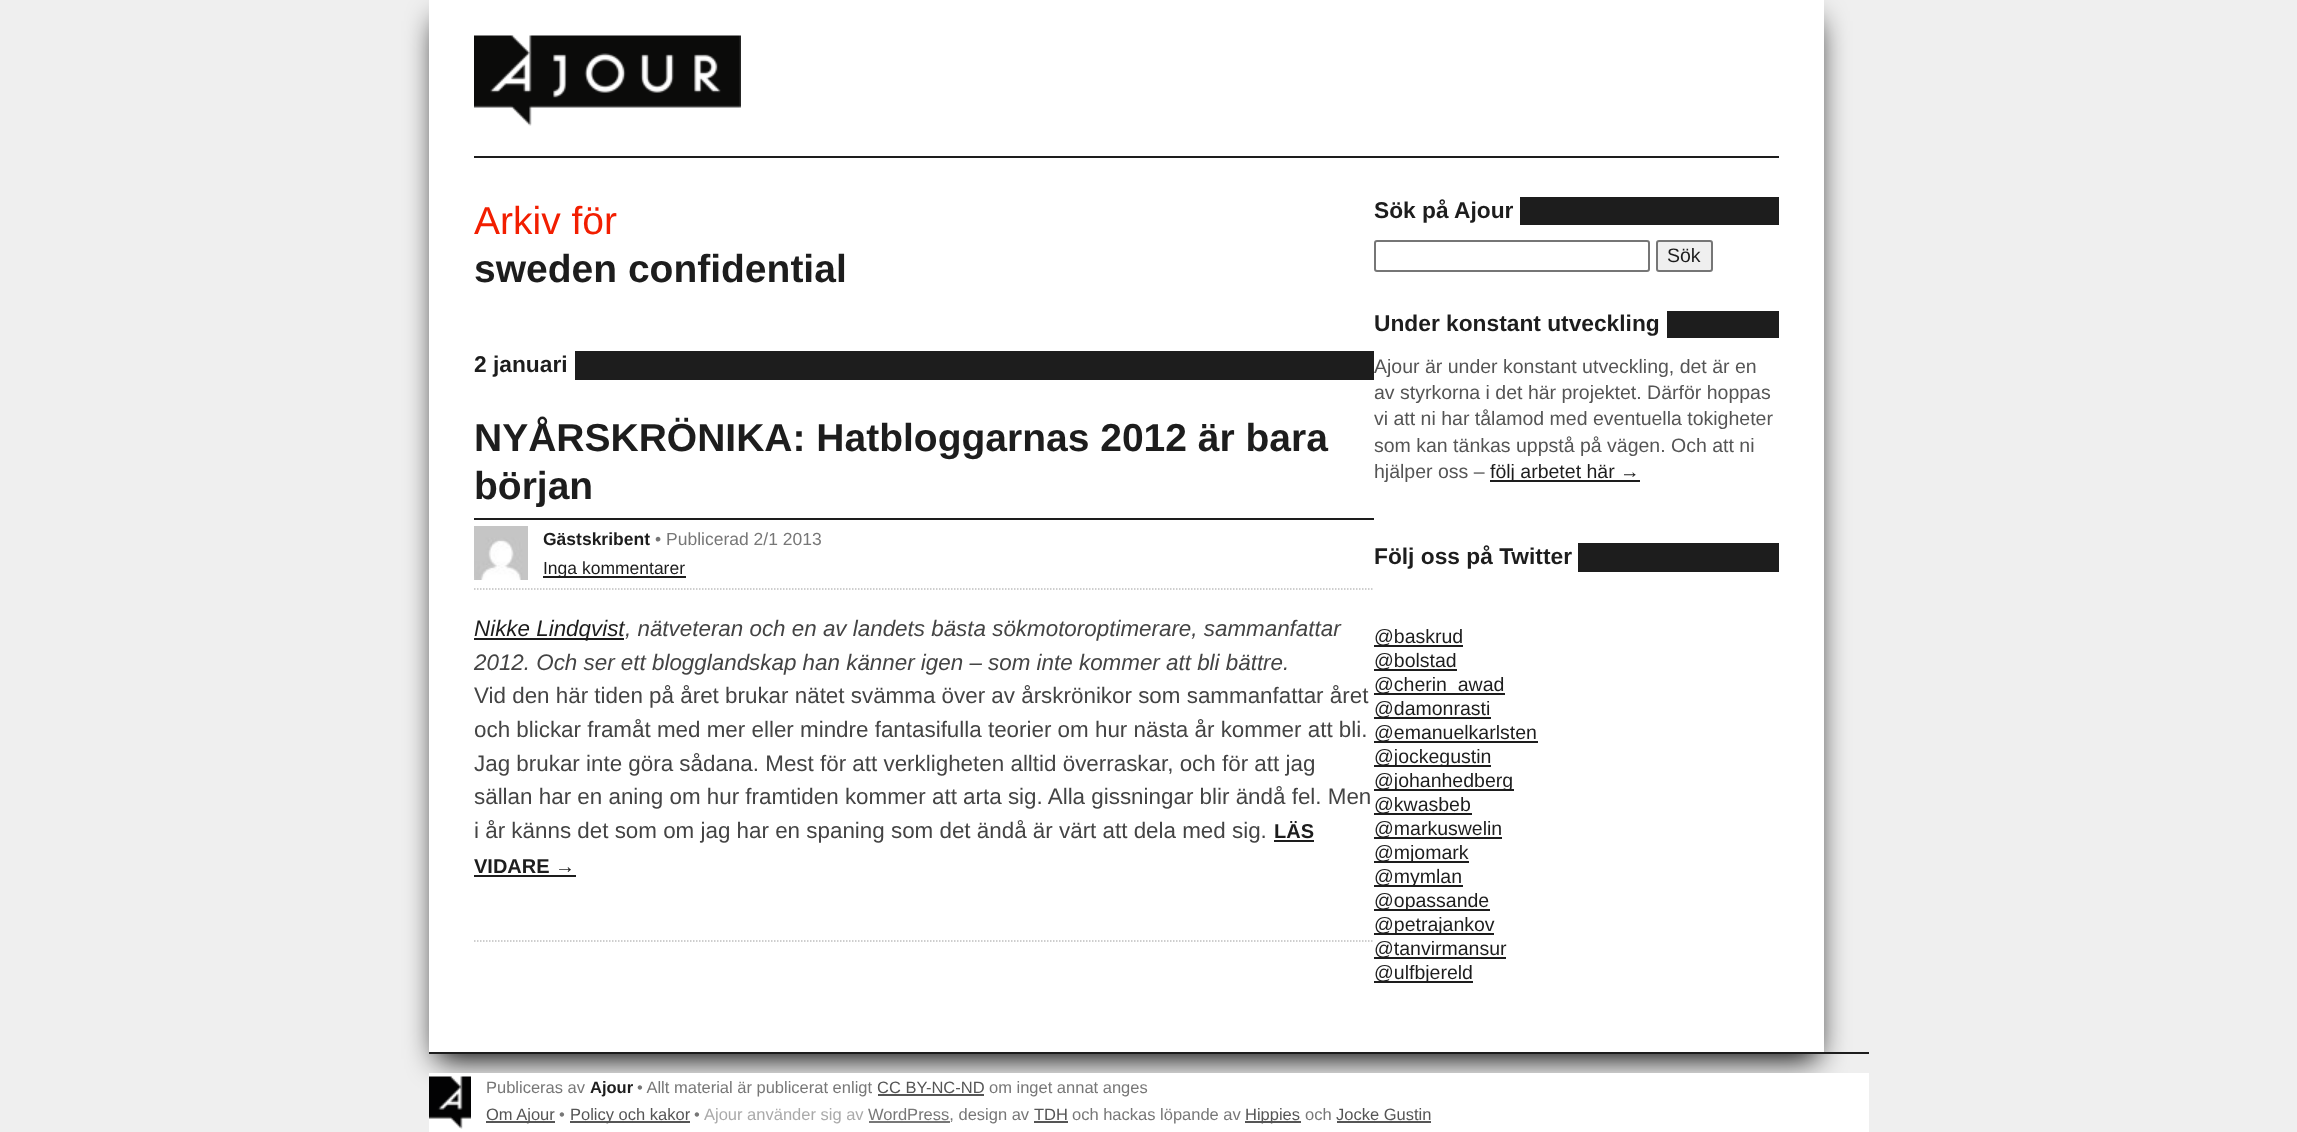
<svg xmlns="http://www.w3.org/2000/svg" width="2297" height="1132" viewBox="0 0 2297 1132">
  <style>
    .t1 { font: 39px Liberation Sans; fill: #f21e00; }
    .t2 { font: bold 39px Liberation Sans; fill: #1d1d1d; }
    .t3 { font: bold 22.75px Liberation Sans; fill: #1d1d1d; }
    .t4 { font: bold 17.5px Liberation Sans; fill: #1d1d1d; }
    .t5 { font: 17.5px Liberation Sans; fill: #777; }
    .t6 { font: 17.5px Liberation Sans; fill: #1d1d1d; }
    .t7 { font: italic 22.4px Liberation Sans; fill: #1d1d1d; }
    .t8 { font: italic 22.4px Liberation Sans; fill: #444; }
    .t9 { font: 22.4px Liberation Sans; fill: #444; }
    .t10 { font: bold 20px Liberation Sans; fill: #1d1d1d; }
    .t11 { font: 19.5px Liberation Sans; fill: #1d1d1d; }
    .t12 { font: 19.5px Liberation Sans; fill: #555; }
    .t13 { font: 16.5px Liberation Sans; fill: #777; }
    .t14 { font: bold 16.5px Liberation Sans; fill: #1d1d1d; }
    .t15 { font: 16.5px Liberation Sans; fill: #555; }
    .t16 { font: 16.5px Liberation Sans; fill: #aaa; }
  </style>
  <rect width="100%" height="100%" fill="#efefef"/>
  <rect x="437" y="21" width="1380" height="1038" fill="#000" filter="blur(15px)"/>
  <rect x="429" y="0" width="1395" height="1052" fill="#fff"/>
  <rect x="474" y="156" width="1305" height="2" fill="#1d1d1d"/>
  <image x="474" y="35" width="267" height="91" href="images/1.png"/>
  <text x="474" y="234" class="t1">Arkiv för</text>
  <text x="474" y="282" class="t2">sweden confidential</text>
  <rect x="575" y="351" width="799" height="29" fill="#1d1d1d"/>
  <text x="474" y="372" class="t3">2 januari</text>
  <path d="M474 941H1374" fill="none" stroke="#bfbfbf" stroke-width="1.5" stroke-dasharray="1.5 1.5"/>
  <rect x="474" y="518" width="900" height="2" fill="#1d1d1d"/>
  <text x="474" y="451" class="t2">NYÅRSKRÖNIKA: Hatbloggarnas 2012 är bara</text>
  <text x="474" y="499" class="t2">början</text>
  <path d="M474 589H1374" fill="none" stroke="#bfbfbf" stroke-width="1.5" stroke-dasharray="1.5 1.5"/>
  <image x="474" y="526" width="54" height="54" href="images/2.png"/>
  <text x="543" y="545" class="t4">Gästskribent</text>
  <text x="655" y="545" class="t5">• Publicerad 2/1 2013</text>
  <rect x="543" y="576" width="143" height="2" fill="#1d1d1d"/>
  <text x="543" y="574" class="t6">Inga kommentarer</text>
  <rect x="474" y="638" width="150" height="2" fill="#1d1d1d"/>
  <text x="474" y="636" class="t7">Nikke Lindqvist</text>
  <text x="625" y="636" class="t8">, nätveteran och en av landets bästa sökmotoroptimerare, sammanfattar</text>
  <text x="474" y="670" class="t8">2012. Och ser ett blogglandskap han känner igen – som inte kommer att bli bättre.</text>
  <text x="474" y="703" class="t9">Vid den här tiden på året brukar nätet svämma över av årskrönikor som sammanfattar året</text>
  <text x="474" y="737" class="t9">och blickar framåt med mer eller mindre fantasifulla teorier om hur nästa år kommer att bli.</text>
  <text x="474" y="771" class="t9">Jag brukar inte göra sådana. Mest för att verkligheten alltid överraskar, och för att jag</text>
  <text x="474" y="804" class="t9">sällan har en aning om hur framtiden kommer att arta sig. Alla gissningar blir ändå fel. Men</text>
  <text x="474" y="838" class="t9">i år känns det som om jag har en spaning som det ändå är värt att dela med sig.</text>
  <text x="1274" y="838" class="t10">LÄS</text>
  <rect x="1274" y="840" width="40" height="2" fill="#1d1d1d"/>
  <text x="474" y="873" class="t10">VIDARE →</text>
  <rect x="474" y="875" width="102" height="2" fill="#1d1d1d"/>
  <rect x="1520" y="197" width="259" height="28" fill="#1d1d1d"/>
  <text x="1374" y="218" class="t3">Sök på Ajour</text>
  <rect x="1375" y="241" width="274" height="30" rx="2" fill="none" stroke="#767676" stroke-width="2"/>
  <rect x="1657" y="241" width="55" height="30" rx="2" fill="#efefef" stroke="#767676" stroke-width="2"/>
  <text x="1667" y="262" class="t11">Sök</text>
  <rect x="1667" y="311" width="112" height="27" fill="#1d1d1d"/>
  <text x="1374" y="331" class="t3">Under konstant utveckling</text>
  <text x="1374" y="373" class="t12">Ajour är under konstant utveckling, det är en</text>
  <text x="1374" y="399" class="t12">av styrkorna i det här projektet. Därför hoppas</text>
  <text x="1374" y="425" class="t12">vi att ni har tålamod med eventuella tokigheter</text>
  <text x="1374" y="452" class="t12">som kan tänkas uppstå på vägen. Och att ni</text>
  <text x="1374" y="478" class="t12">hjälper oss –</text>
  <rect x="1490" y="480" width="150" height="2" fill="#1d1d1d"/>
  <text x="1490" y="478" class="t11">följ arbetet här →</text>
  <rect x="1578" y="543" width="201" height="29" fill="#1d1d1d"/>
  <text x="1374" y="564" class="t3">Följ oss på Twitter</text>
  <rect x="1374" y="645" width="89" height="2" fill="#1d1d1d"/>
  <text x="1374" y="643" class="t11">@baskrud</text>
  <rect x="1374" y="669" width="83" height="2" fill="#1d1d1d"/>
  <text x="1374" y="667" class="t11">@bolstad</text>
  <rect x="1374" y="693" width="131" height="2" fill="#1d1d1d"/>
  <text x="1374" y="691" class="t11">@cherin_awad</text>
  <rect x="1374" y="717" width="117" height="2" fill="#1d1d1d"/>
  <text x="1374" y="715" class="t11">@damonrasti</text>
  <rect x="1374" y="741" width="164" height="2" fill="#1d1d1d"/>
  <text x="1374" y="739" class="t11">@emanuelkarlsten</text>
  <rect x="1374" y="765" width="117" height="2" fill="#1d1d1d"/>
  <text x="1374" y="763" class="t11">@jockegustin</text>
  <rect x="1374" y="789" width="140" height="2" fill="#1d1d1d"/>
  <text x="1374" y="787" class="t11">@johanhedberg</text>
  <rect x="1374" y="813" width="98" height="2" fill="#1d1d1d"/>
  <text x="1374" y="811" class="t11">@kwasbeb</text>
  <rect x="1374" y="837" width="128" height="2" fill="#1d1d1d"/>
  <text x="1374" y="835" class="t11">@markuswelin</text>
  <rect x="1374" y="861" width="95" height="2" fill="#1d1d1d"/>
  <text x="1374" y="859" class="t11">@mjomark</text>
  <rect x="1374" y="885" width="89" height="2" fill="#1d1d1d"/>
  <text x="1374" y="883" class="t11">@mymlan</text>
  <rect x="1374" y="909" width="116" height="2" fill="#1d1d1d"/>
  <text x="1374" y="907" class="t11">@opassande</text>
  <rect x="1374" y="933" width="120" height="2" fill="#1d1d1d"/>
  <text x="1374" y="931" class="t11">@petrajankov</text>
  <rect x="1374" y="957" width="132" height="2" fill="#1d1d1d"/>
  <text x="1374" y="955" class="t11">@tanvirmansur</text>
  <rect x="1374" y="981" width="99" height="2" fill="#1d1d1d"/>
  <text x="1374" y="979" class="t11">@ulfbjereld</text>
  <rect x="429" y="1052" width="1440" height="2" fill="#1d1d1d"/>
  <rect x="429" y="1073" width="1440" height="59" fill="#fff"/>
  <image x="429" y="1076" width="42" height="53" href="images/3.png"/>
  <text x="486" y="1093" class="t13">Publiceras av</text>
  <text x="590" y="1093" class="t14">Ajour</text>
  <text x="637" y="1093" class="t13">• Allt material är publicerat enligt</text>
  <text x="877" y="1093" class="t15">CC BY-NC-ND</text>
  <rect x="878" y="1094" width="106" height="2" fill="#555"/>
  <text x="989" y="1093" class="t13">om inget annat anges</text>
  <rect x="486" y="1121" width="69" height="2" fill="#555"/>
  <text x="486" y="1120" class="t15">Om Ajour</text>
  <text x="559" y="1120" class="t13">•</text>
  <rect x="570" y="1121" width="120" height="2" fill="#555"/>
  <text x="570" y="1120" class="t15">Policy och kakor</text>
  <text x="694" y="1120" class="t13">•</text>
  <text x="704" y="1120" class="t16">Ajour använder sig av</text>
  <rect x="869" y="1121" width="81" height="2" fill="#777"/>
  <text x="868" y="1120" class="t13">WordPress, design av</text>
  <text x="1034" y="1120" class="t15">TDH</text>
  <rect x="1034" y="1121" width="34" height="2" fill="#555"/>
  <text x="1072" y="1120" class="t13">och hackas löpande av</text>
  <rect x="1245" y="1121" width="56" height="2" fill="#555"/>
  <text x="1245" y="1120" class="t15">Hippies</text>
  <text x="1305" y="1120" class="t13">och</text>
  <text x="1336" y="1120" class="t15">Jocke Gustin</text>
  <rect x="1337" y="1121" width="94" height="2" fill="#555"/>
</svg>
